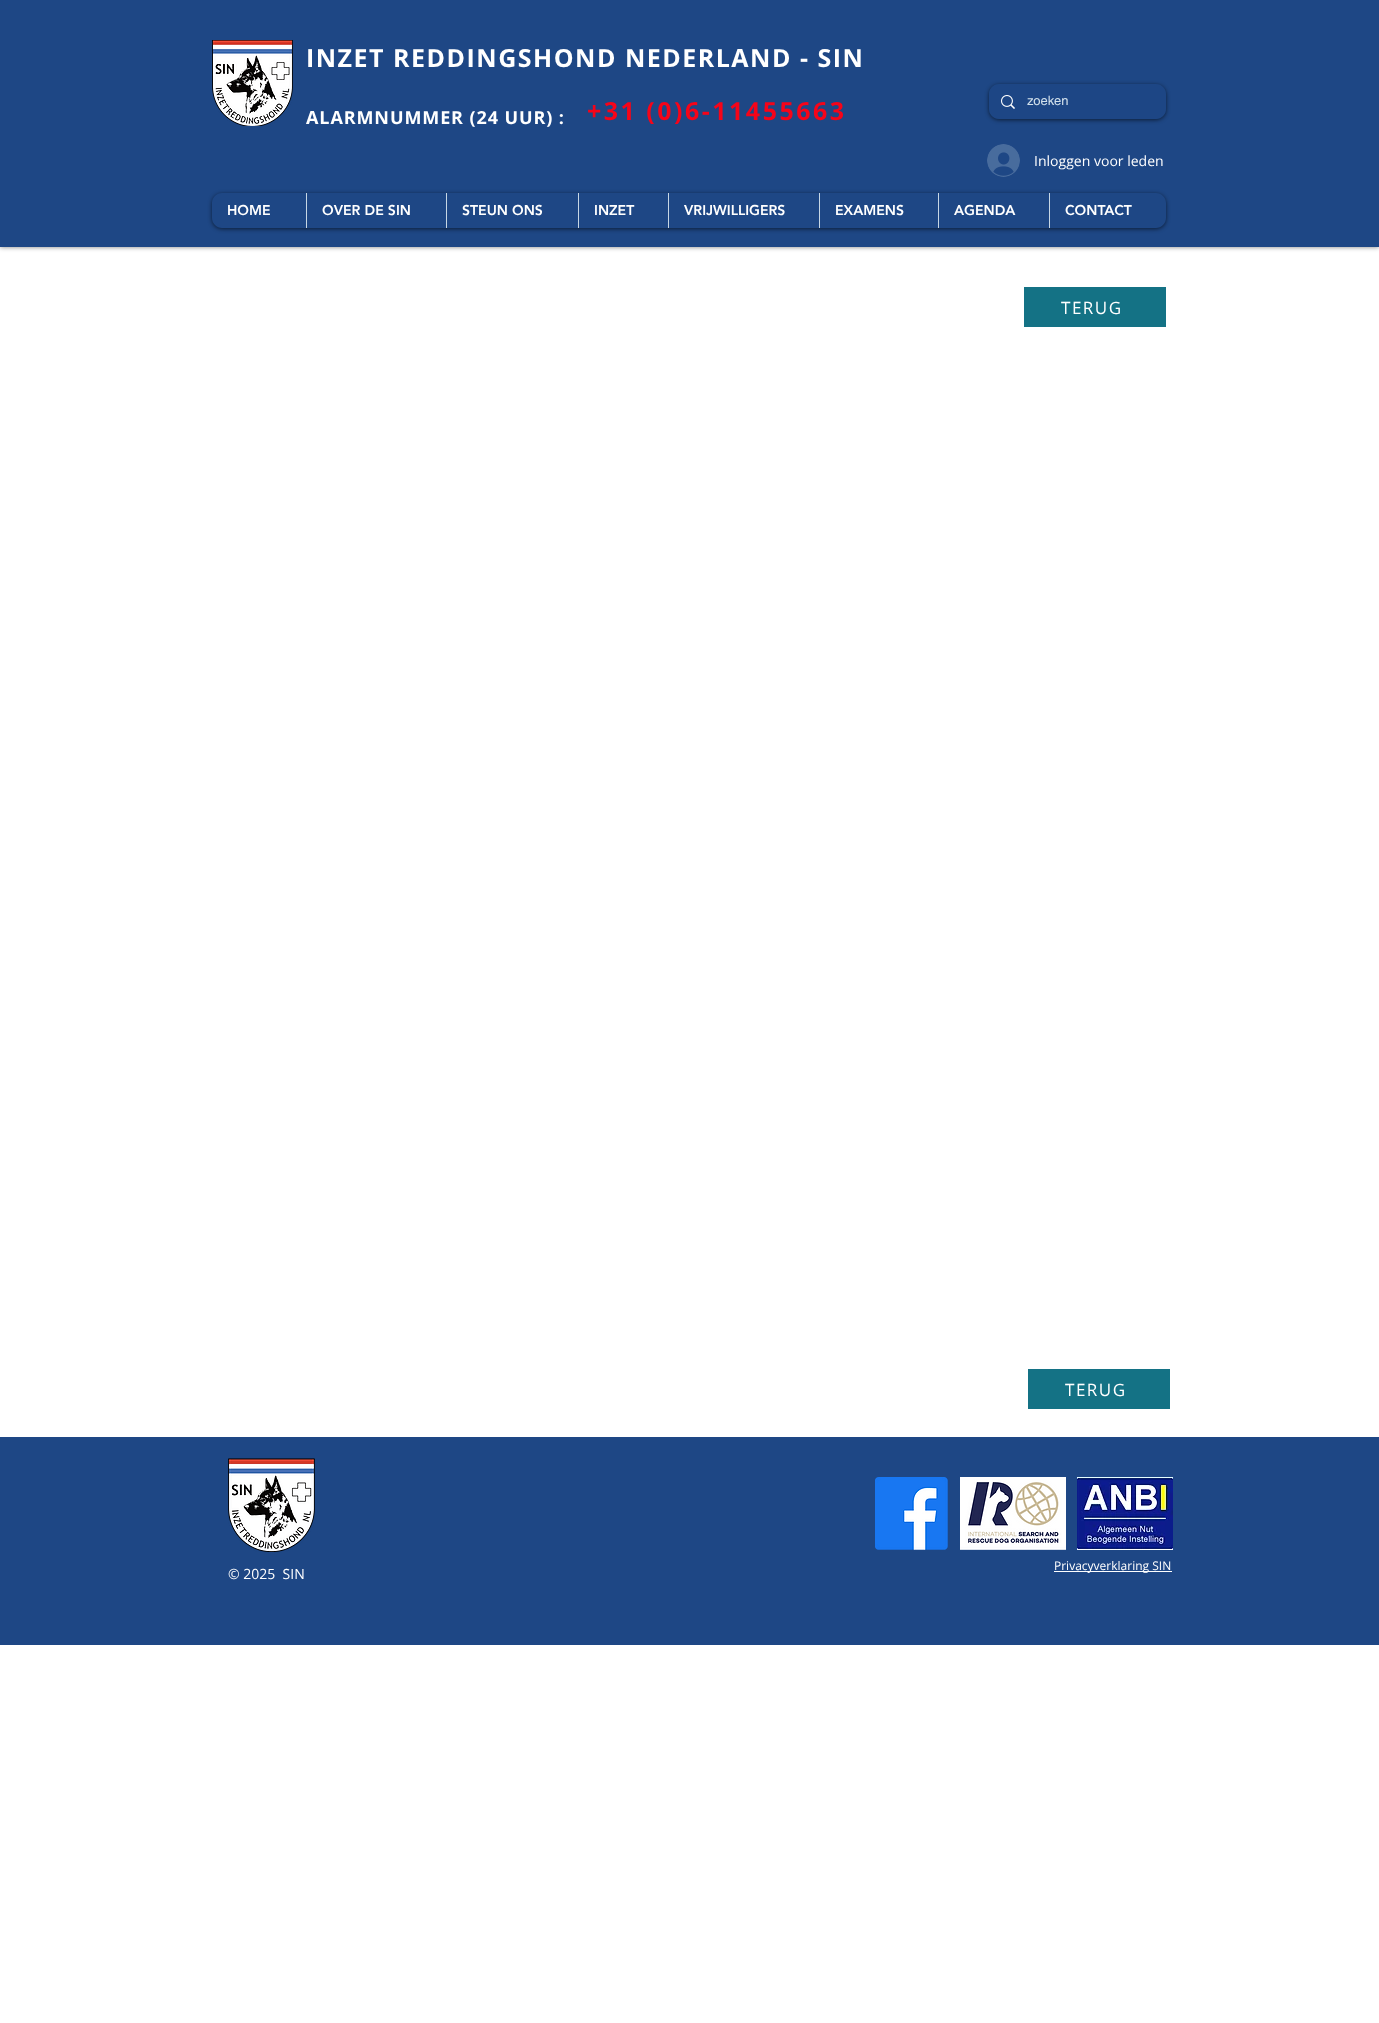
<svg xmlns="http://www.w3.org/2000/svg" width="1379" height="2023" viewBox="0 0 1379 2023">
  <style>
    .t1 { font: bold 25px Open Sans; letter-spacing: 1.5px; fill: #fff; }
    .t2 { font: bold 18px Open Sans; letter-spacing: 0.9px; fill: #fff; }
    .t3 { font: bold 25px Open Sans; letter-spacing: 2.5px; fill: #f60419; }
    .t4 { font: 13px helvetica; fill: #d1e0eb; }
    .t5 { font: 14px Open Sans; fill: #fff; }
    .t6 { font: 900 14px 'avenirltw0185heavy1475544'; fill: #fff; }
    .t7 { font: 17px Open Sans; letter-spacing: 1.5px; fill: #fff; }
    .t8 { font: 12px Open Sans; fill: #fff; }
  </style>
  <defs>
    <clipPath id="clip1"><path d="M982 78H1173V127H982ZM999 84H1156C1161.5 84 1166 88.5 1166 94V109C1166 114.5 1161.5 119 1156 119H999C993.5 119 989 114.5 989 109V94C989 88.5 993.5 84 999 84Z" clip-rule="evenodd"/></clipPath>
    <clipPath id="clip2"><path d="M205 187H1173V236H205ZM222 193H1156C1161.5 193 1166 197.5 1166 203V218C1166 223.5 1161.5 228 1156 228H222C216.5 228 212 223.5 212 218V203C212 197.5 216.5 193 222 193Z" clip-rule="evenodd"/></clipPath>
  </defs>
  <rect width="100%" height="100%" fill="#fff"/>
  <rect x="0" y="0" width="1379" height="247" fill="#00000080" filter="blur(2.5px)"/>
  <rect x="0" y="0" width="1379" height="247" fill="#1e4785"/>
  <image x="212" y="40" width="81" height="86" href="images/1.png"/>
  <text x="306" y="67" class="t1">INZET REDDINGSHOND NEDERLAND - SIN</text>
  <text x="306" y="124" class="t2">ALARMNUMMER (24 UUR) :</text>
  <text x="587" y="120" class="t3">+31 (0)6-11455663</text>
  <g clip-path="url(#clip1)">
    <rect x="989" y="85" width="177" height="35" rx="10" fill="#00000099" filter="blur(2px)"/>
  </g>
  <rect x="989" y="84" width="177" height="35" rx="10" fill="#1e478594"/>
  <image x="1001" y="95" width="14" height="14" href="images/2.png"/>
  <text x="1027" y="105" class="t4">zoeken</text>
  <image x="987" y="144" width="33" height="33" href="images/3.png"/>
  <text x="1034" y="166" class="t5">Inloggen voor leden</text>
  <g clip-path="url(#clip2)">
    <rect x="212" y="194" width="954" height="35" rx="10" fill="#00000099" filter="blur(2px)"/>
  </g>
  <text x="227" y="215" class="t6">HOME</text>
  <rect x="306" y="193" width="1" height="35" fill="#c7d7e5"/>
  <text x="322" y="215" class="t6">OVER DE SIN</text>
  <rect x="446" y="193" width="1" height="35" fill="#c7d7e5"/>
  <text x="462" y="215" class="t6">STEUN ONS</text>
  <rect x="578" y="193" width="1" height="35" fill="#c7d7e5"/>
  <text x="594" y="215" class="t6">INZET</text>
  <rect x="668" y="193" width="1" height="35" fill="#c7d7e5"/>
  <text x="684" y="215" class="t6">VRIJWILLIGERS</text>
  <rect x="819" y="193" width="1" height="35" fill="#c7d7e5"/>
  <text x="835" y="215" class="t6">EXAMENS</text>
  <rect x="938" y="193" width="1" height="35" fill="#c7d7e5"/>
  <text x="954" y="215" class="t6">AGENDA</text>
  <rect x="1049" y="193" width="1" height="35" fill="#c7d7e5"/>
  <text x="1065" y="215" class="t6">CONTACT</text>
  <rect x="1024" y="287" width="142" height="40" fill="#147285"/>
  <text x="1061" y="314" class="t7">TERUG</text>
  <rect x="1028" y="1369" width="142" height="40" fill="#147285"/>
  <text x="1065" y="1396" class="t7">TERUG</text>
  <rect x="0" y="1437" width="1379" height="208" fill="#1e4785"/>
  <image x="228" y="1458" width="87" height="94" href="images/4.png"/>
  <image x="875" y="1477" width="73" height="73" href="images/5.png"/>
  <image x="960" y="1477" width="106" height="73" href="images/6.png"/>
  <image x="1077" y="1477" width="96" height="73" href="images/7.png"/>
  <text x="228" y="1579" class="t5" xml:space="preserve">© 2025  SIN</text>
  <rect x="1054" y="1571" width="118" height="1" fill="#fff"/>
  <text x="1054" y="1570" class="t8">Privacyverklaring SIN</text>
</svg>
